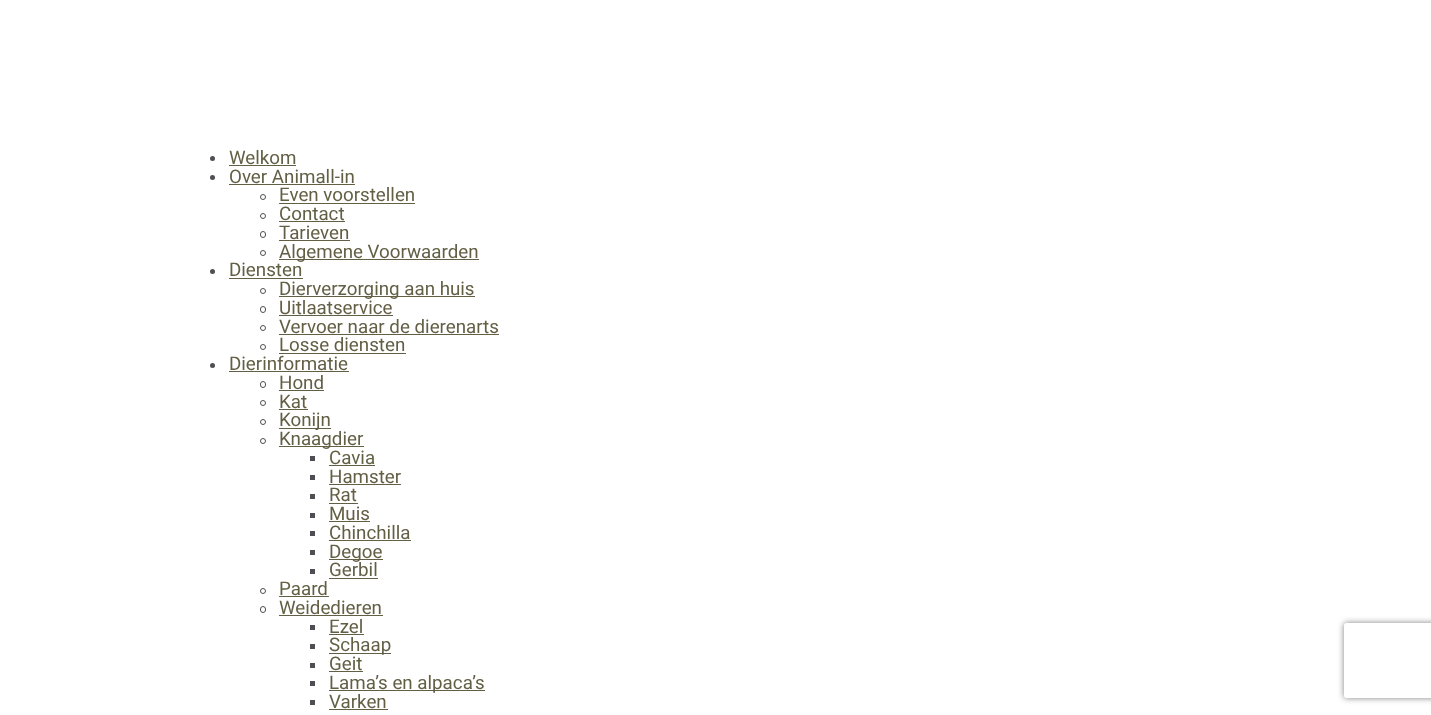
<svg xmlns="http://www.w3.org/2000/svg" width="1431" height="715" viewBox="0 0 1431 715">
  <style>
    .t1 { font: 18.75px Roboto; fill: #635f45; }
  </style>
  <defs>
    <clipPath id="clip1"><path d="M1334 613H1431V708H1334ZM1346.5 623H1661.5C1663 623 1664 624 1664 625.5V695.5C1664 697 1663 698 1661.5 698H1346.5C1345 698 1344 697 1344 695.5V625.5C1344 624 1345 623 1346.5 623Z" clip-rule="evenodd"/></clipPath>
  </defs>
  <rect width="100%" height="100%" fill="#fff"/>
  <circle cx="212.5" cy="158.5" r="2.5" fill="#4d4f53"/>
  <text x="229" y="164" class="t1">Welkom</text>
  <rect x="229" y="165" width="67" height="1" fill="#635f45"/>
  <circle cx="212.5" cy="177.5" r="2.5" fill="#4d4f53"/>
  <text x="229" y="183" class="t1">Over Animall-in</text>
  <rect x="229" y="184" width="126" height="1" fill="#635f45"/>
  <circle cx="263" cy="197" r="2.5" fill="none" stroke="#4d4f53"/>
  <text x="279" y="201" class="t1">Even voorstellen</text>
  <rect x="279" y="203" width="136" height="1" fill="#635f45"/>
  <circle cx="263" cy="216" r="2.5" fill="none" stroke="#4d4f53"/>
  <text x="279" y="220" class="t1">Contact</text>
  <rect x="279" y="221" width="66" height="1" fill="#635f45"/>
  <rect x="260.5" y="231.5" width="5" height="6" rx="2.5" fill="none" stroke="#4d4f53"/>
  <text x="279" y="239" class="t1">Tarieven</text>
  <rect x="279" y="240" width="71" height="1" fill="#635f45"/>
  <circle cx="263" cy="253" r="2.5" fill="none" stroke="#4d4f53"/>
  <rect x="279" y="259" width="200" height="1" fill="#635f45"/>
  <text x="279" y="258" class="t1">Algemene Voorwaarden</text>
  <circle cx="212.5" cy="271.5" r="2.5" fill="#4d4f53"/>
  <text x="229" y="276" class="t1">Diensten</text>
  <rect x="229" y="278" width="74" height="1" fill="#635f45"/>
  <circle cx="263" cy="291" r="2.5" fill="none" stroke="#4d4f53"/>
  <rect x="279" y="296" width="196" height="1" fill="#635f45"/>
  <text x="279" y="295" class="t1">Dierverzorging aan huis</text>
  <rect x="260.5" y="306.5" width="5" height="6" rx="2.5" fill="none" stroke="#4d4f53"/>
  <text x="279" y="314" class="t1">Uitlaatservice</text>
  <rect x="279" y="315" width="114" height="1" fill="#635f45"/>
  <circle cx="263" cy="328" r="2.5" fill="none" stroke="#4d4f53"/>
  <text x="279" y="333" class="t1">Vervoer naar de dierenarts</text>
  <rect x="279" y="334" width="220" height="1" fill="#635f45"/>
  <circle cx="263" cy="347" r="2.5" fill="none" stroke="#4d4f53"/>
  <text x="279" y="351" class="t1">Losse diensten</text>
  <rect x="279" y="353" width="127" height="1" fill="#635f45"/>
  <circle cx="212.5" cy="365.5" r="2.5" fill="#4d4f53"/>
  <text x="229" y="370" class="t1">Dierinformatie</text>
  <rect x="229" y="371" width="120" height="1" fill="#635f45"/>
  <rect x="260.5" y="381.5" width="5" height="6" rx="2.5" fill="none" stroke="#4d4f53"/>
  <text x="279" y="389" class="t1">Hond</text>
  <rect x="279" y="390" width="45" height="1" fill="#635f45"/>
  <circle cx="263" cy="403" r="2.5" fill="none" stroke="#4d4f53"/>
  <text x="279" y="408" class="t1">Kat</text>
  <rect x="279" y="409" width="29" height="1" fill="#635f45"/>
  <circle cx="263" cy="422" r="2.5" fill="none" stroke="#4d4f53"/>
  <rect x="279" y="428" width="52" height="1" fill="#635f45"/>
  <text x="279" y="426" class="t1">Konijn</text>
  <circle cx="263" cy="441" r="2.5" fill="none" stroke="#4d4f53"/>
  <rect x="279" y="446" width="85" height="1" fill="#635f45"/>
  <text x="279" y="445" class="t1">Knaagdier</text>
  <rect x="310" y="456" width="5" height="5" fill="#4d4f53"/>
  <text x="329" y="464" class="t1">Cavia</text>
  <rect x="329" y="465" width="46" height="1" fill="#635f45"/>
  <rect x="310" y="475" width="5" height="5" fill="#4d4f53"/>
  <text x="329" y="483" class="t1">Hamster</text>
  <rect x="329" y="484" width="72" height="1" fill="#635f45"/>
  <rect x="310" y="494" width="5" height="5" fill="#4d4f53"/>
  <text x="329" y="501" class="t1">Rat</text>
  <rect x="329" y="503" width="29" height="1" fill="#635f45"/>
  <rect x="310" y="513" width="5" height="5" fill="#4d4f53"/>
  <text x="329" y="520" class="t1">Muis</text>
  <rect x="329" y="521" width="41" height="1" fill="#635f45"/>
  <rect x="310" y="531" width="5" height="5" fill="#4d4f53"/>
  <text x="329" y="539" class="t1">Chinchilla</text>
  <rect x="329" y="540" width="82" height="1" fill="#635f45"/>
  <rect x="310" y="550" width="5" height="5" fill="#4d4f53"/>
  <rect x="329" y="559" width="54" height="1" fill="#635f45"/>
  <text x="329" y="558" class="t1">Degoe</text>
  <rect x="310" y="569" width="5" height="5" fill="#4d4f53"/>
  <text x="329" y="576" class="t1">Gerbil</text>
  <rect x="329" y="578" width="49" height="1" fill="#635f45"/>
  <circle cx="263" cy="591" r="2.5" fill="none" stroke="#4d4f53"/>
  <text x="279" y="595" class="t1">Paard</text>
  <rect x="279" y="596" width="50" height="1" fill="#635f45"/>
  <rect x="260.5" y="606.5" width="5" height="6" rx="2.5" fill="none" stroke="#4d4f53"/>
  <text x="279" y="614" class="t1">Weidedieren</text>
  <rect x="279" y="615" width="104" height="1" fill="#635f45"/>
  <rect x="310" y="625" width="5" height="5" fill="#4d4f53"/>
  <text x="329" y="633" class="t1">Ezel</text>
  <rect x="329" y="634" width="35" height="1" fill="#635f45"/>
  <rect x="310" y="644" width="5" height="5" fill="#4d4f53"/>
  <rect x="329" y="653" width="62" height="1" fill="#635f45"/>
  <text x="329" y="651" class="t1">Schaap</text>
  <rect x="310" y="663" width="5" height="5" fill="#4d4f53"/>
  <text x="329" y="670" class="t1">Geit</text>
  <rect x="329" y="671" width="34" height="1" fill="#635f45"/>
  <rect x="310" y="681" width="5" height="5" fill="#4d4f53"/>
  <rect x="329" y="690" width="156" height="1" fill="#635f45"/>
  <text x="329" y="689" class="t1">Lama’s en alpaca’s</text>
  <rect x="310" y="700" width="5" height="5" fill="#4d4f53"/>
  <text x="329" y="708" class="t1">Varken</text>
  <rect x="329" y="709" width="59" height="1" fill="#635f45"/>
  <g clip-path="url(#clip1)">
    <rect x="1344" y="623" width="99" height="75" rx="2.5" fill="#808080" filter="blur(3px)"/>
  </g>
</svg>
